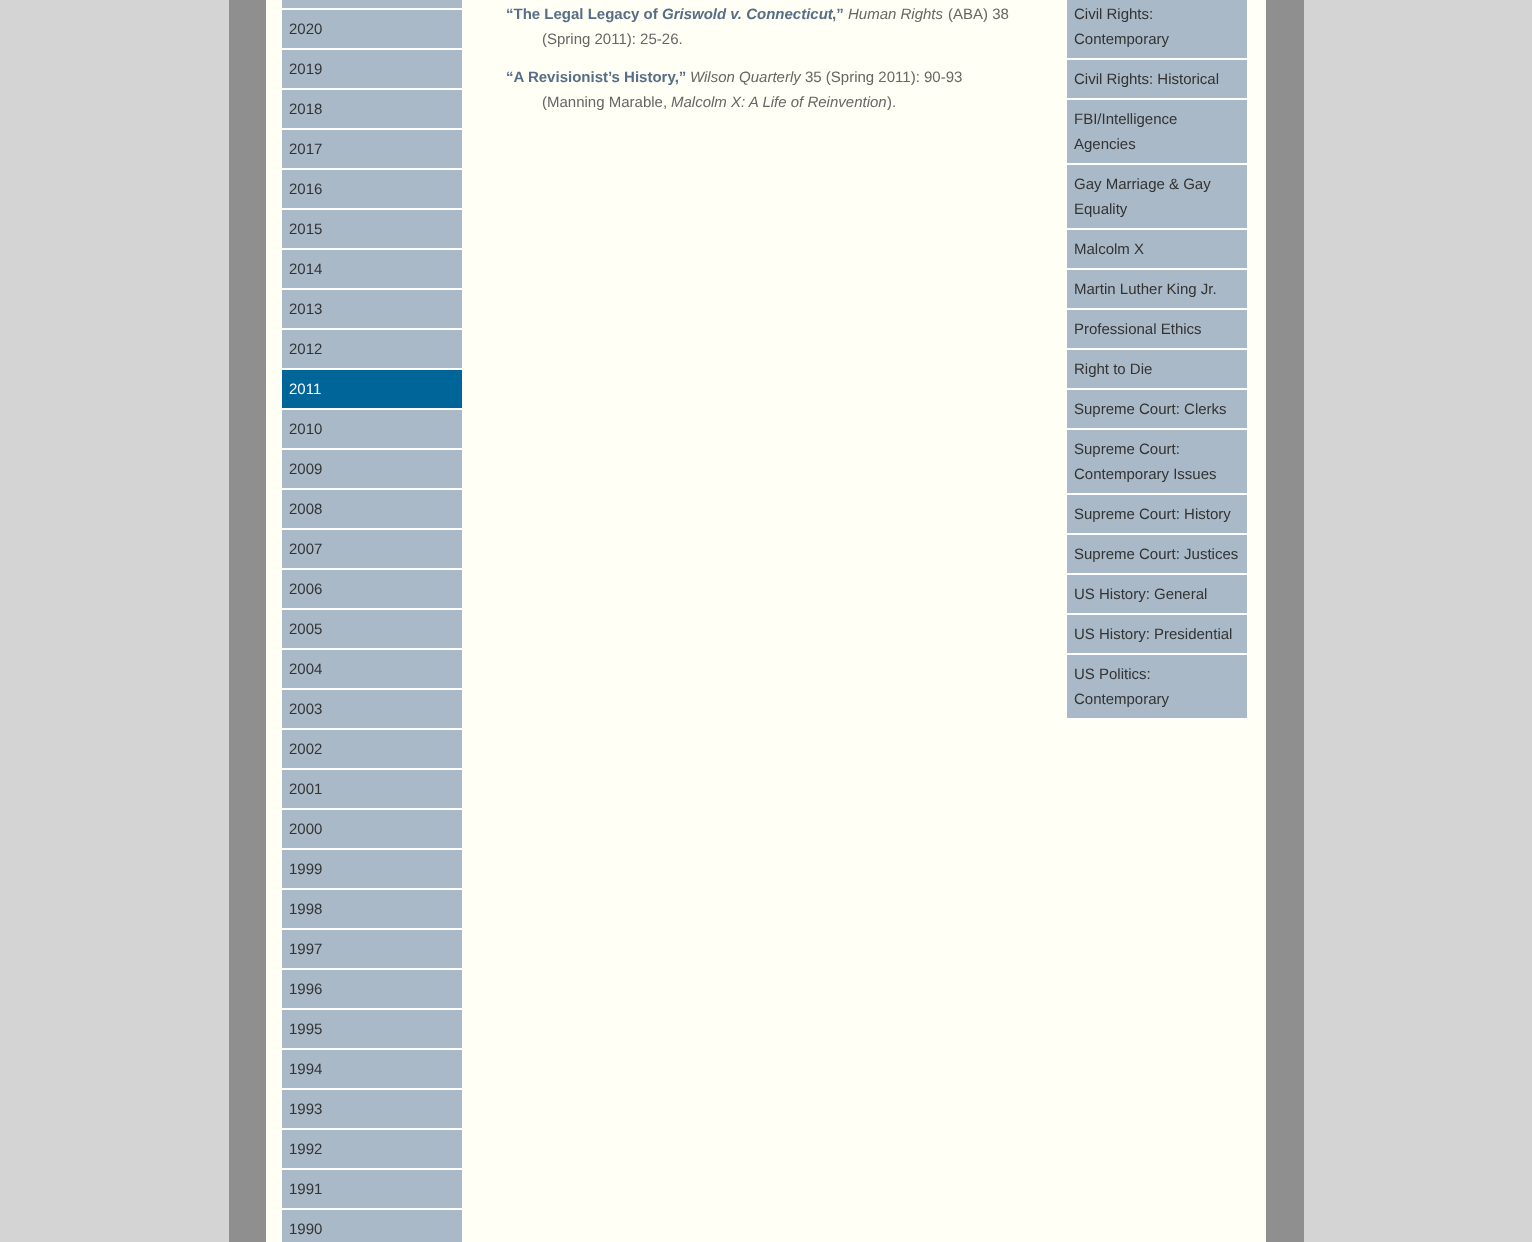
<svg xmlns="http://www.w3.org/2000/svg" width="1532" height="1242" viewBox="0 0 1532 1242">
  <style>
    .t1 { font: 15px Liberation Sans; fill: #333; }
    .t2 { font: 15px Liberation Sans; fill: #fff; }
    .t3 { font: bold 15px Liberation Sans; fill: #566e86; }
    .t4 { font: italic bold 15px Liberation Sans; fill: #566e86; }
    .t5 { font: italic 15px Liberation Sans; fill: #666; }
    .t6 { font: 15px Liberation Sans; fill: #666; }
  </style>
  <rect width="100%" height="100%" fill="#d4d4d4"/>
  <rect x="266" y="0" width="1000" height="1242" fill="#fffff5"/>
  <rect x="1266" y="0" width="38" height="1242" fill="#8f8f8f"/>
  <rect x="229" y="0" width="37" height="1242" fill="#8f8f8f"/>
  <rect x="282" y="0" width="180" height="1242" fill="#aab9c7"/>
  <rect x="281.5" y="-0.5" width="181" height="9" fill="none" stroke="#fff"/>
  <rect x="281.5" y="9.5" width="181" height="39" fill="none" stroke="#fff"/>
  <text x="289" y="34" class="t1">2020</text>
  <rect x="281.5" y="49.5" width="181" height="39" fill="none" stroke="#fff"/>
  <text x="289" y="74" class="t1">2019</text>
  <rect x="281.5" y="89.5" width="181" height="39" fill="none" stroke="#fff"/>
  <text x="289" y="114" class="t1">2018</text>
  <rect x="281.5" y="129.5" width="181" height="39" fill="none" stroke="#fff"/>
  <text x="289" y="154" class="t1">2017</text>
  <rect x="281.5" y="169.5" width="181" height="39" fill="none" stroke="#fff"/>
  <text x="289" y="194" class="t1">2016</text>
  <rect x="281.5" y="209.5" width="181" height="39" fill="none" stroke="#fff"/>
  <text x="289" y="234" class="t1">2015</text>
  <rect x="281.5" y="249.5" width="181" height="39" fill="none" stroke="#fff"/>
  <text x="289" y="274" class="t1">2014</text>
  <rect x="281.5" y="289.5" width="181" height="39" fill="none" stroke="#fff"/>
  <text x="289" y="314" class="t1">2013</text>
  <rect x="281.5" y="329.5" width="181" height="39" fill="none" stroke="#fff"/>
  <text x="289" y="354" class="t1">2012</text>
  <rect x="281.5" y="369.5" width="181" height="39" fill="#069" stroke="#fff"/>
  <text x="289" y="394" class="t2">2011</text>
  <rect x="281.5" y="409.5" width="181" height="39" fill="none" stroke="#fff"/>
  <text x="289" y="434" class="t1">2010</text>
  <rect x="281.5" y="449.5" width="181" height="39" fill="none" stroke="#fff"/>
  <text x="289" y="474" class="t1">2009</text>
  <rect x="281.5" y="489.5" width="181" height="39" fill="none" stroke="#fff"/>
  <text x="289" y="514" class="t1">2008</text>
  <rect x="281.5" y="529.5" width="181" height="39" fill="none" stroke="#fff"/>
  <text x="289" y="554" class="t1">2007</text>
  <rect x="281.5" y="569.5" width="181" height="39" fill="none" stroke="#fff"/>
  <text x="289" y="594" class="t1">2006</text>
  <rect x="281.5" y="609.5" width="181" height="39" fill="none" stroke="#fff"/>
  <text x="289" y="634" class="t1">2005</text>
  <rect x="281.5" y="649.5" width="181" height="39" fill="none" stroke="#fff"/>
  <text x="289" y="674" class="t1">2004</text>
  <rect x="281.5" y="689.5" width="181" height="39" fill="none" stroke="#fff"/>
  <text x="289" y="714" class="t1">2003</text>
  <rect x="281.5" y="729.5" width="181" height="39" fill="none" stroke="#fff"/>
  <text x="289" y="754" class="t1">2002</text>
  <rect x="281.5" y="769.5" width="181" height="39" fill="none" stroke="#fff"/>
  <text x="289" y="794" class="t1">2001</text>
  <rect x="281.5" y="809.5" width="181" height="39" fill="none" stroke="#fff"/>
  <text x="289" y="834" class="t1">2000</text>
  <rect x="281.5" y="849.5" width="181" height="39" fill="none" stroke="#fff"/>
  <text x="289" y="874" class="t1">1999</text>
  <rect x="281.5" y="889.5" width="181" height="39" fill="none" stroke="#fff"/>
  <text x="289" y="914" class="t1">1998</text>
  <rect x="281.5" y="929.5" width="181" height="39" fill="none" stroke="#fff"/>
  <text x="289" y="954" class="t1">1997</text>
  <rect x="281.5" y="969.5" width="181" height="39" fill="none" stroke="#fff"/>
  <text x="289" y="994" class="t1">1996</text>
  <rect x="281.5" y="1009.5" width="181" height="39" fill="none" stroke="#fff"/>
  <text x="289" y="1034" class="t1">1995</text>
  <rect x="281.5" y="1049.5" width="181" height="39" fill="none" stroke="#fff"/>
  <text x="289" y="1074" class="t1">1994</text>
  <rect x="281.5" y="1089.5" width="181" height="39" fill="none" stroke="#fff"/>
  <text x="289" y="1114" class="t1">1993</text>
  <rect x="281.5" y="1129.5" width="181" height="39" fill="none" stroke="#fff"/>
  <text x="289" y="1154" class="t1">1992</text>
  <rect x="281.5" y="1169.5" width="181" height="39" fill="none" stroke="#fff"/>
  <text x="289" y="1194" class="t1">1991</text>
  <rect x="281.5" y="1209.5" width="181" height="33" fill="none" stroke="#fff"/>
  <text x="289" y="1234" class="t1">1990</text>
  <text x="506" y="19" class="t3">“The Legal Legacy of</text>
  <text x="662" y="19" class="t4">Griswold v. Connecticut</text>
  <text x="832" y="19" class="t3">,”</text>
  <text x="848" y="19" class="t5">Human Rights</text>
  <text x="948" y="19" class="t6">(ABA) 38</text>
  <text x="542" y="44" class="t6">(Spring 2011): 25-26.</text>
  <text x="506" y="82" class="t3">“A Revisionist’s History,”</text>
  <text x="690" y="82" class="t5">Wilson Quarterly</text>
  <text x="805" y="82" class="t6">35 (Spring 2011): 90-93</text>
  <text x="542" y="107" class="t6">(Manning Marable,</text>
  <text x="671" y="107" class="t5">Malcolm X: A Life of Reinvention</text>
  <text x="887" y="107" class="t6">).</text>
  <rect x="1067" y="0" width="180" height="718" fill="#aab9c7"/>
  <rect x="1066.5" y="-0.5" width="181" height="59" fill="none" stroke="#fff"/>
  <text x="1074" y="19" class="t1">Civil Rights:</text>
  <text x="1074" y="44" class="t1">Contemporary</text>
  <rect x="1066.5" y="59.5" width="181" height="39" fill="none" stroke="#fff"/>
  <text x="1074" y="84" class="t1">Civil Rights: Historical</text>
  <rect x="1066.5" y="99.5" width="181" height="64" fill="none" stroke="#fff"/>
  <text x="1074" y="124" class="t1">FBI/Intelligence</text>
  <text x="1074" y="149" class="t1">Agencies</text>
  <rect x="1066.5" y="164.5" width="181" height="64" fill="none" stroke="#fff"/>
  <text x="1074" y="189" class="t1">Gay Marriage &amp; Gay</text>
  <text x="1074" y="214" class="t1">Equality</text>
  <rect x="1066.5" y="229.5" width="181" height="39" fill="none" stroke="#fff"/>
  <text x="1074" y="254" class="t1">Malcolm X</text>
  <rect x="1066.5" y="269.5" width="181" height="39" fill="none" stroke="#fff"/>
  <text x="1074" y="294" class="t1">Martin Luther King Jr.</text>
  <rect x="1066.5" y="309.5" width="181" height="39" fill="none" stroke="#fff"/>
  <text x="1074" y="334" class="t1">Professional Ethics</text>
  <rect x="1066.5" y="349.5" width="181" height="39" fill="none" stroke="#fff"/>
  <text x="1074" y="374" class="t1">Right to Die</text>
  <rect x="1066.5" y="389.5" width="181" height="39" fill="none" stroke="#fff"/>
  <text x="1074" y="414" class="t1">Supreme Court: Clerks</text>
  <rect x="1066.5" y="429.5" width="181" height="64" fill="none" stroke="#fff"/>
  <text x="1074" y="454" class="t1">Supreme Court:</text>
  <text x="1074" y="479" class="t1">Contemporary Issues</text>
  <rect x="1066.5" y="494.5" width="181" height="39" fill="none" stroke="#fff"/>
  <text x="1074" y="519" class="t1">Supreme Court: History</text>
  <rect x="1066.5" y="534.5" width="181" height="39" fill="none" stroke="#fff"/>
  <text x="1074" y="559" class="t1">Supreme Court: Justices</text>
  <rect x="1066.5" y="574.5" width="181" height="39" fill="none" stroke="#fff"/>
  <text x="1074" y="599" class="t1">US History: General</text>
  <rect x="1066.5" y="614.5" width="181" height="39" fill="none" stroke="#fff"/>
  <text x="1074" y="639" class="t1">US History: Presidential</text>
  <rect x="1066.5" y="654.5" width="181" height="64" fill="none" stroke="#fff"/>
  <text x="1074" y="679" class="t1">US Politics:</text>
  <text x="1074" y="704" class="t1">Contemporary</text>
</svg>
